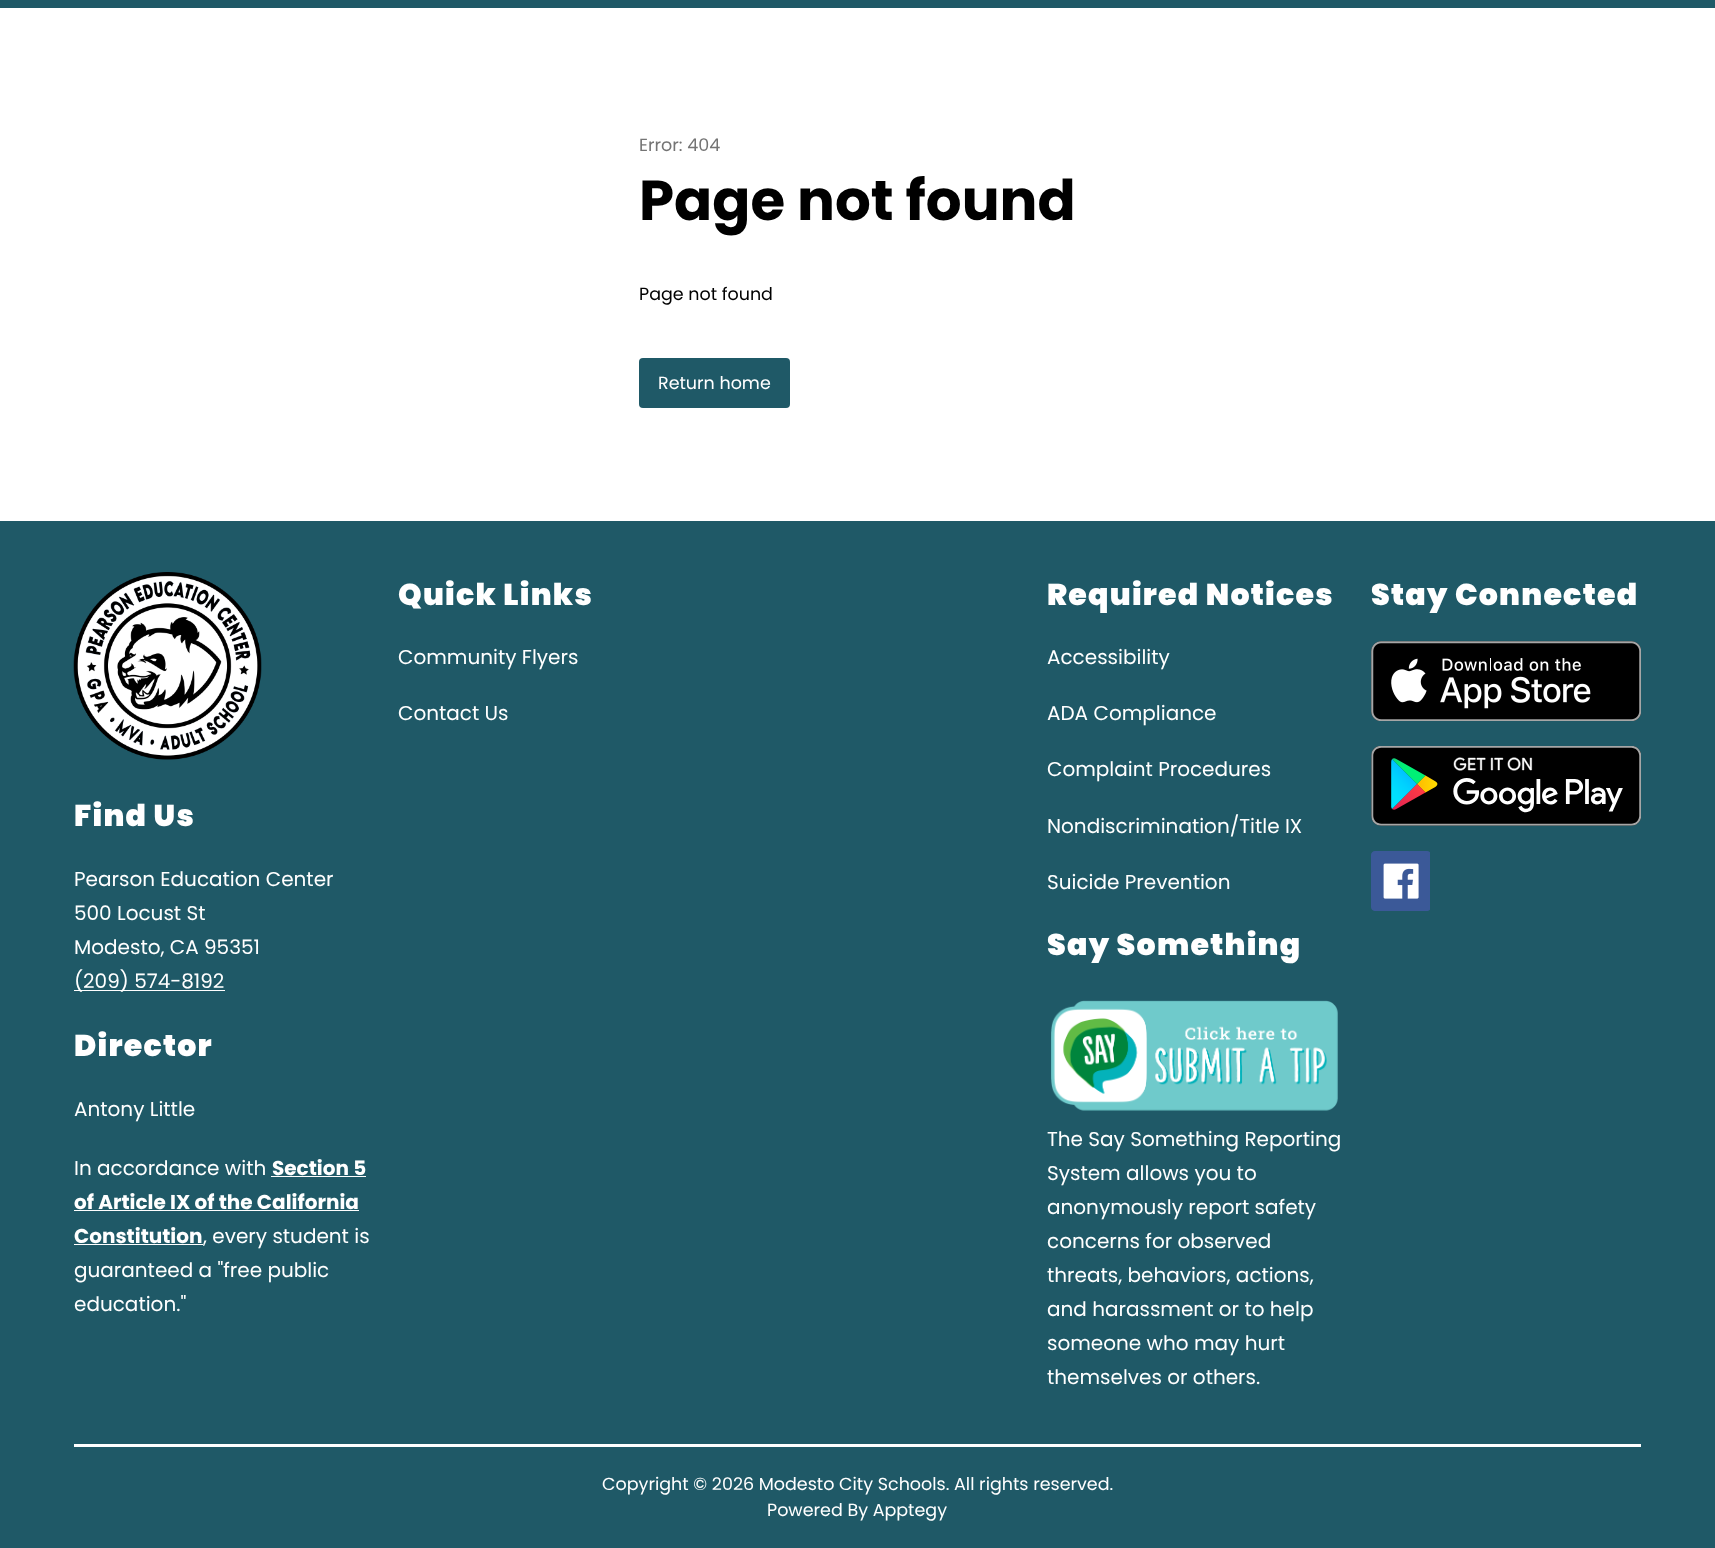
<svg xmlns="http://www.w3.org/2000/svg" width="1715" height="1548" viewBox="0 0 1715 1548">
  <style>
    .t1 { font: 17.5px Poppins; fill: #747474; }
    .t2 { font: bold 56.25px Poppins; fill: #000; }
    .t3 { font: 17.5px Poppins; fill: #000; }
    .t4 { font: 17.5px Poppins; fill: #fff; }
    .t5 { font: 900 30px Poppins; letter-spacing: 1.25px; fill: #fff; }
    .t6 { font: 20px Poppins; fill: #fff; }
    .t7 { font: bold 20px Poppins; fill: #fff; }
  </style>
  <rect width="100%" height="100%" fill="#fff"/>
  <rect x="0" y="0" width="1715" height="8" fill="#1f5967"/>
  <text x="639" y="151" class="t1">Error: 404</text>
  <text x="639" y="220" class="t2">Page not found</text>
  <text x="639" y="300" class="t3">Page not found</text>
  <rect x="639" y="358" width="151" height="50" rx="4" fill="#1f5967"/>
  <text x="658" y="389" class="t4">Return home</text>
  <rect x="0" y="521" width="1715" height="1027" fill="#1f5967"/>
  <text x="398" y="605" class="t5">Quick Links</text>
  <text x="398" y="664" class="t6">Community Flyers</text>
  <text x="398" y="720" class="t6">Contact Us</text>
  <text x="1047" y="605" class="t5">Required Notices</text>
  <text x="1047" y="664" class="t6">Accessibility</text>
  <text x="1047" y="720" class="t6">ADA Compliance</text>
  <text x="1047" y="776" class="t6">Complaint Procedures</text>
  <text x="1047" y="833" class="t6">Nondiscrimination/Title IX</text>
  <text x="1047" y="889" class="t6">Suicide Prevention</text>
  <text x="1047" y="955" class="t5">Say Something</text>
  <image x="1051" y="1000" width="287" height="111" href="images/1.png"/>
  <text x="1047" y="1146" class="t6">The Say Something Reporting</text>
  <text x="1047" y="1180" class="t6">System allows you to</text>
  <text x="1047" y="1214" class="t6">anonymously report safety</text>
  <text x="1047" y="1248" class="t6">concerns for observed</text>
  <text x="1047" y="1282" class="t6">threats, behaviors, actions,</text>
  <text x="1047" y="1316" class="t6">and harassment or to help</text>
  <text x="1047" y="1350" class="t6">someone who may hurt</text>
  <text x="1047" y="1384" class="t6">themselves or others.</text>
  <text x="1371" y="605" class="t5">Stay Connected</text>
  <image x="1371" y="641" width="270" height="80" href="images/2.png"/>
  <image x="1371" y="746" width="270" height="80" href="images/3.png"/>
  <image x="1371" y="851" width="59" height="60" href="images/4.png"/>
  <image x="73" y="572" width="189" height="188" href="images/5.png"/>
  <text x="74" y="826" class="t5">Find Us</text>
  <text x="74" y="886" class="t6">Pearson Education Center</text>
  <text x="74" y="920" class="t6">500 Locust St</text>
  <text x="74" y="954" class="t6">Modesto, CA 95351</text>
  <rect x="74" y="990" width="151" height="1" fill="#fff"/>
  <text x="74" y="988" class="t6">(209) 574-8192</text>
  <text x="74" y="1056" class="t5">Director</text>
  <text x="74" y="1116" class="t6">Antony Little</text>
  <text x="74" y="1175" class="t6">In accordance with</text>
  <text x="272" y="1175" class="t7">Section 5</text>
  <rect x="271" y="1176" width="95" height="1" fill="#fff"/>
  <text x="74" y="1209" class="t7">of Article IX of the California</text>
  <rect x="74" y="1210" width="285" height="1" fill="#fff"/>
  <text x="74" y="1243" class="t7">Constitution</text>
  <rect x="74" y="1244" width="129" height="1" fill="#fff"/>
  <text x="203" y="1243" class="t6">, every student is</text>
  <text x="74" y="1277" class="t6">guaranteed a "free public</text>
  <text x="74" y="1311" class="t6">education."</text>
  <rect x="74" y="1444" width="1567" height="3" fill="#fff"/>
  <text x="602" y="1490" class="t4">Copyright © 2026 Modesto City Schools. All rights reserved.</text>
  <text x="767" y="1516" class="t4">Powered By Apptegy</text>
</svg>
